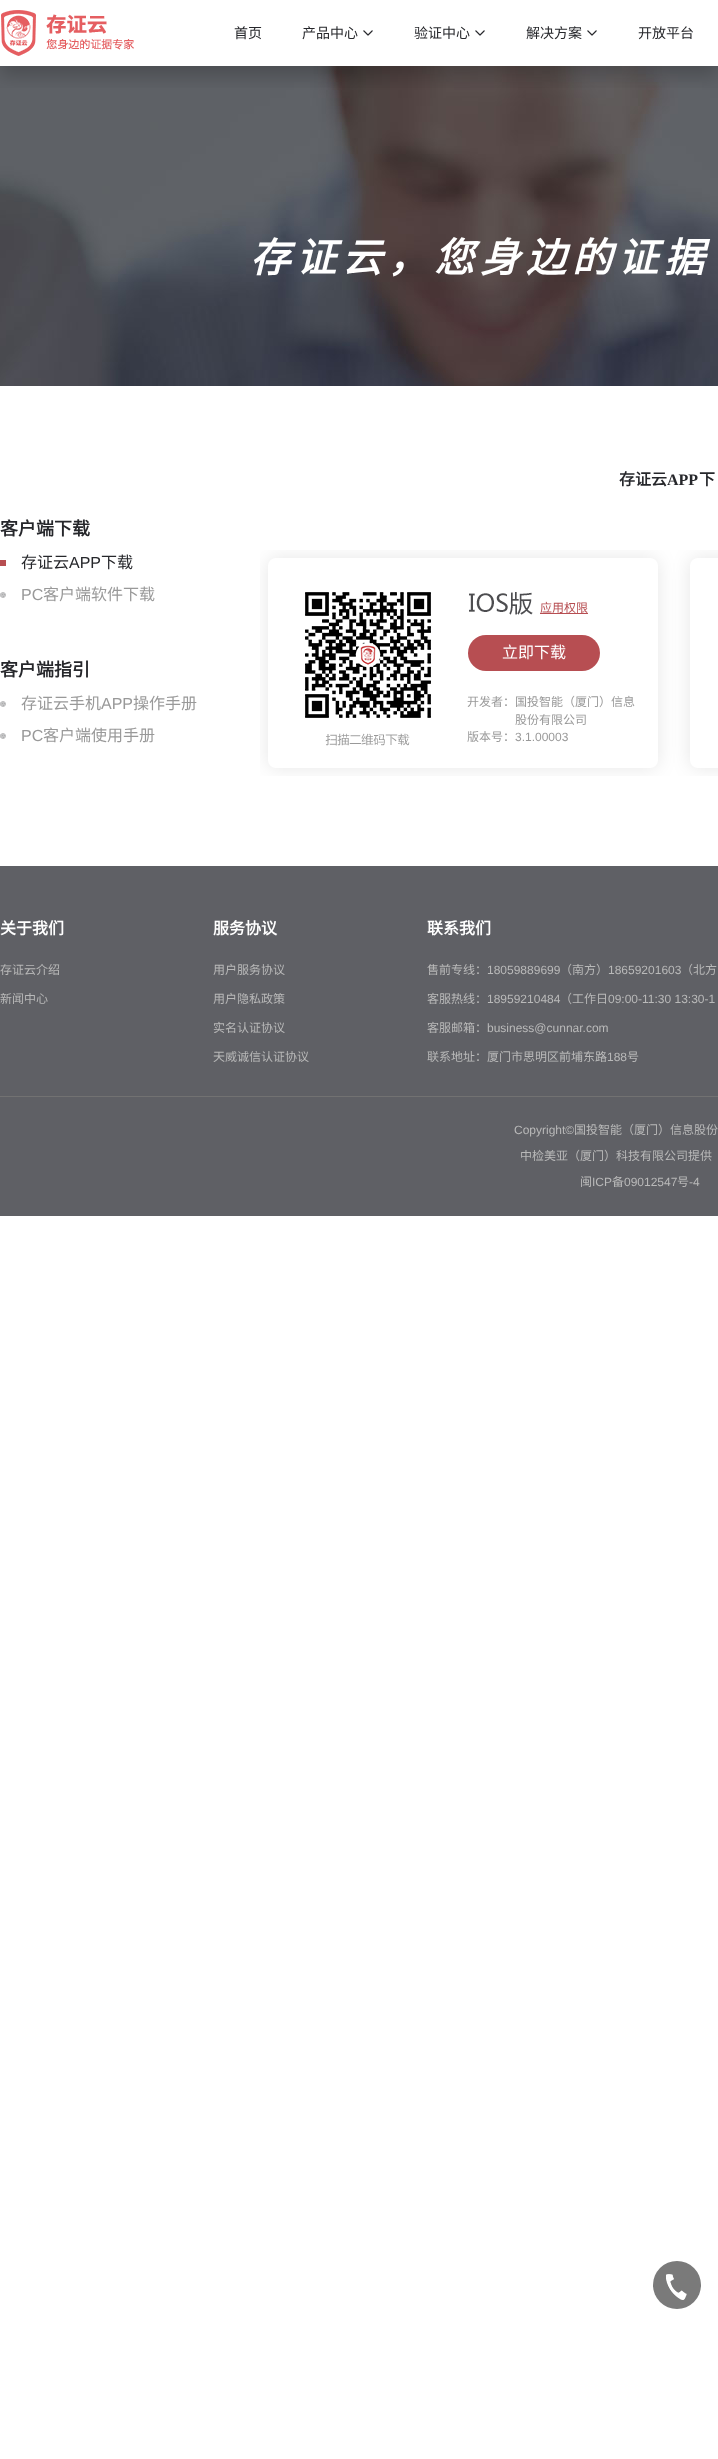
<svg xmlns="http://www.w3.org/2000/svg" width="718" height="2459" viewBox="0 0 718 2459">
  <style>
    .t1 { font: 14px Noto Sans CJK SC; fill: #26272b; }
    .t2 { font: italic bold 40px Noto Sans CJK SC; letter-spacing: 6px; fill: #fff; }
    .t3 { font: bold 18px Noto Sans CJK SC; fill: #26272b; }
    .t4 { font: 16px Noto Sans CJK SC; fill: #26272b; }
    .t5 { font: 16px Liberation Sans; fill: #26272b; }
    .t6 { font: 16px Liberation Sans; fill: #999; }
    .t7 { font: 16px Noto Sans CJK SC; fill: #999; }
    .t8 { font: bold 16px Noto Sans CJK SC; fill: #26272b; }
    .t9 { font: bold 16px Liberation Serif; fill: #26272b; }
    .t10 { font: 12px Noto Sans CJK SC; fill: #b74e52; }
    .t11 { font: 16px Noto Sans CJK SC; fill: #fff; }
    .t12 { font: 12px Noto Sans CJK SC; fill: #999; }
    .t13 { font: 12px Liberation Sans; fill: #999; }
    .t14 { font: bold 16px Noto Sans CJK SC; fill: #fff; }
    .t15 { font: 12px Noto Sans CJK SC; fill: #b9b9b9; }
    .t16 { font: 12px Liberation Sans; fill: #b9b9b9; }
  </style>
  <defs>
    <clipPath id="clip1"><rect x="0" y="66" width="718" height="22"/></clipPath>
  </defs>
  <rect width="100%" height="100%" fill="#fff"/>
  <image x="0" y="66" width="718" height="320" href="images/3.png"/>
  <g clip-path="url(#clip1)">
    <rect x="0" y="10" width="718" height="66" fill="#00000033" filter="blur(9px)"/>
  </g>
  <image x="1" y="10" width="133" height="46" href="images/1.png"/>
  <text x="234" y="38" class="t1">首页</text>
  <text x="302" y="38" class="t1">产品中心</text>
  <image x="363" y="30" width="10" height="6" href="images/2.png"/>
  <text x="414" y="38" class="t1">验证中心</text>
  <image x="475" y="30" width="10" height="6" href="images/2.png"/>
  <text x="526" y="38" class="t1">解决方案</text>
  <image x="587" y="30" width="10" height="6" href="images/2.png"/>
  <text x="638" y="38" class="t1">开放平台</text>
  <text x="250" y="272" class="t2">存证云，您身边的证据</text>
  <text x="0" y="535" class="t3">客户端下载</text>
  <rect x="0" y="560" width="6" height="6" fill="#b74e51"/>
  <text x="21" y="568" class="t4">存证云</text>
  <text x="69" y="568" class="t5">APP</text>
  <text x="101" y="568" class="t4">下载</text>
  <image x="0" y="592" width="6" height="6" href="images/4.png"/>
  <text x="21" y="600" class="t6">PC</text>
  <text x="43" y="600" class="t7">客户端软件下载</text>
  <text x="0" y="676" class="t3">客户端指引</text>
  <image x="0" y="701" width="6" height="6" href="images/4.png"/>
  <text x="21" y="709" class="t7">存证云手机</text>
  <text x="101" y="709" class="t6">APP</text>
  <text x="133" y="709" class="t7">操作手册</text>
  <image x="0" y="733" width="6" height="6" href="images/4.png"/>
  <text x="21" y="741" class="t6">PC</text>
  <text x="43" y="741" class="t7">客户端使用手册</text>
  <text x="619" y="485" class="t8">存证云</text>
  <text x="667" y="485" class="t9">APP</text>
  <text x="699" y="485" class="t8">下</text>
  <image x="260" y="550" width="458" height="226" href="images/5.png"/>
  <text x="540" y="612" class="t10">应用权限</text>
  <rect x="540" y="613" width="48" height="1" fill="#b74e52"/>
  <rect x="468" y="635" width="132" height="36" rx="18" fill="#b74e52"/>
  <text x="502" y="658" class="t11">立即下载</text>
  <text x="467" y="706" class="t12">开发者：国投智能（厦门）信息</text>
  <text x="515" y="724" class="t12">股份有限公司</text>
  <text x="467" y="741" class="t12">版本号：</text>
  <text x="515" y="741" class="t13">3.1.00003</text>
  <rect x="0" y="866" width="718" height="350" fill="#5f6065"/>
  <text x="0" y="934" class="t14">关于我们</text>
  <text x="0" y="974" class="t15">存证云介绍</text>
  <text x="0" y="1003" class="t15">新闻中心</text>
  <text x="213" y="934" class="t14">服务协议</text>
  <text x="213" y="974" class="t15">用户服务协议</text>
  <text x="213" y="1003" class="t15">用户隐私政策</text>
  <text x="213" y="1032" class="t15">实名认证协议</text>
  <text x="213" y="1061" class="t15">天威诚信认证协议</text>
  <text x="427" y="934" class="t14">联系我们</text>
  <text x="427" y="974" class="t15">售前专线：</text>
  <text x="487" y="974" class="t16">18059889699</text>
  <text x="560" y="974" class="t15">（南方）</text>
  <text x="608" y="974" class="t16">18659201603</text>
  <text x="681" y="974" class="t15">（北方</text>
  <text x="427" y="1003" class="t15">客服热线：</text>
  <text x="487" y="1003" class="t16">18959210484</text>
  <text x="560" y="1003" class="t15">（工作日</text>
  <text x="608" y="1003" class="t16">09:00-11:30 13:30-1</text>
  <text x="427" y="1032" class="t15">客服邮箱：</text>
  <text x="487" y="1032" class="t16">business@cunnar.com</text>
  <text x="427" y="1061" class="t15">联系地址：厦门市思明区前埔东路</text>
  <text x="607" y="1061" class="t16">188</text>
  <text x="627" y="1061" class="t15">号</text>
  <rect x="0" y="1096" width="718" height="1" fill="#727272"/>
  <text x="514" y="1134" class="t16">Copyright©</text>
  <text x="574" y="1134" class="t15">国投智能（厦门）信息股份</text>
  <text x="520" y="1160" class="t15">中检美亚（厦门）科技有限公司提供</text>
  <text x="580" y="1186" class="t15">闽</text>
  <text x="592" y="1186" class="t16">ICP</text>
  <text x="612" y="1186" class="t15">备</text>
  <text x="624" y="1186" class="t16">09012547</text>
  <text x="677" y="1186" class="t15">号</text>
  <text x="689" y="1186" class="t16">-4</text>
  <circle cx="677" cy="2285" r="24" fill="#7a7a7a"/>
  <image x="666" y="2274" width="21" height="26" href="images/6.png"/>
</svg>
